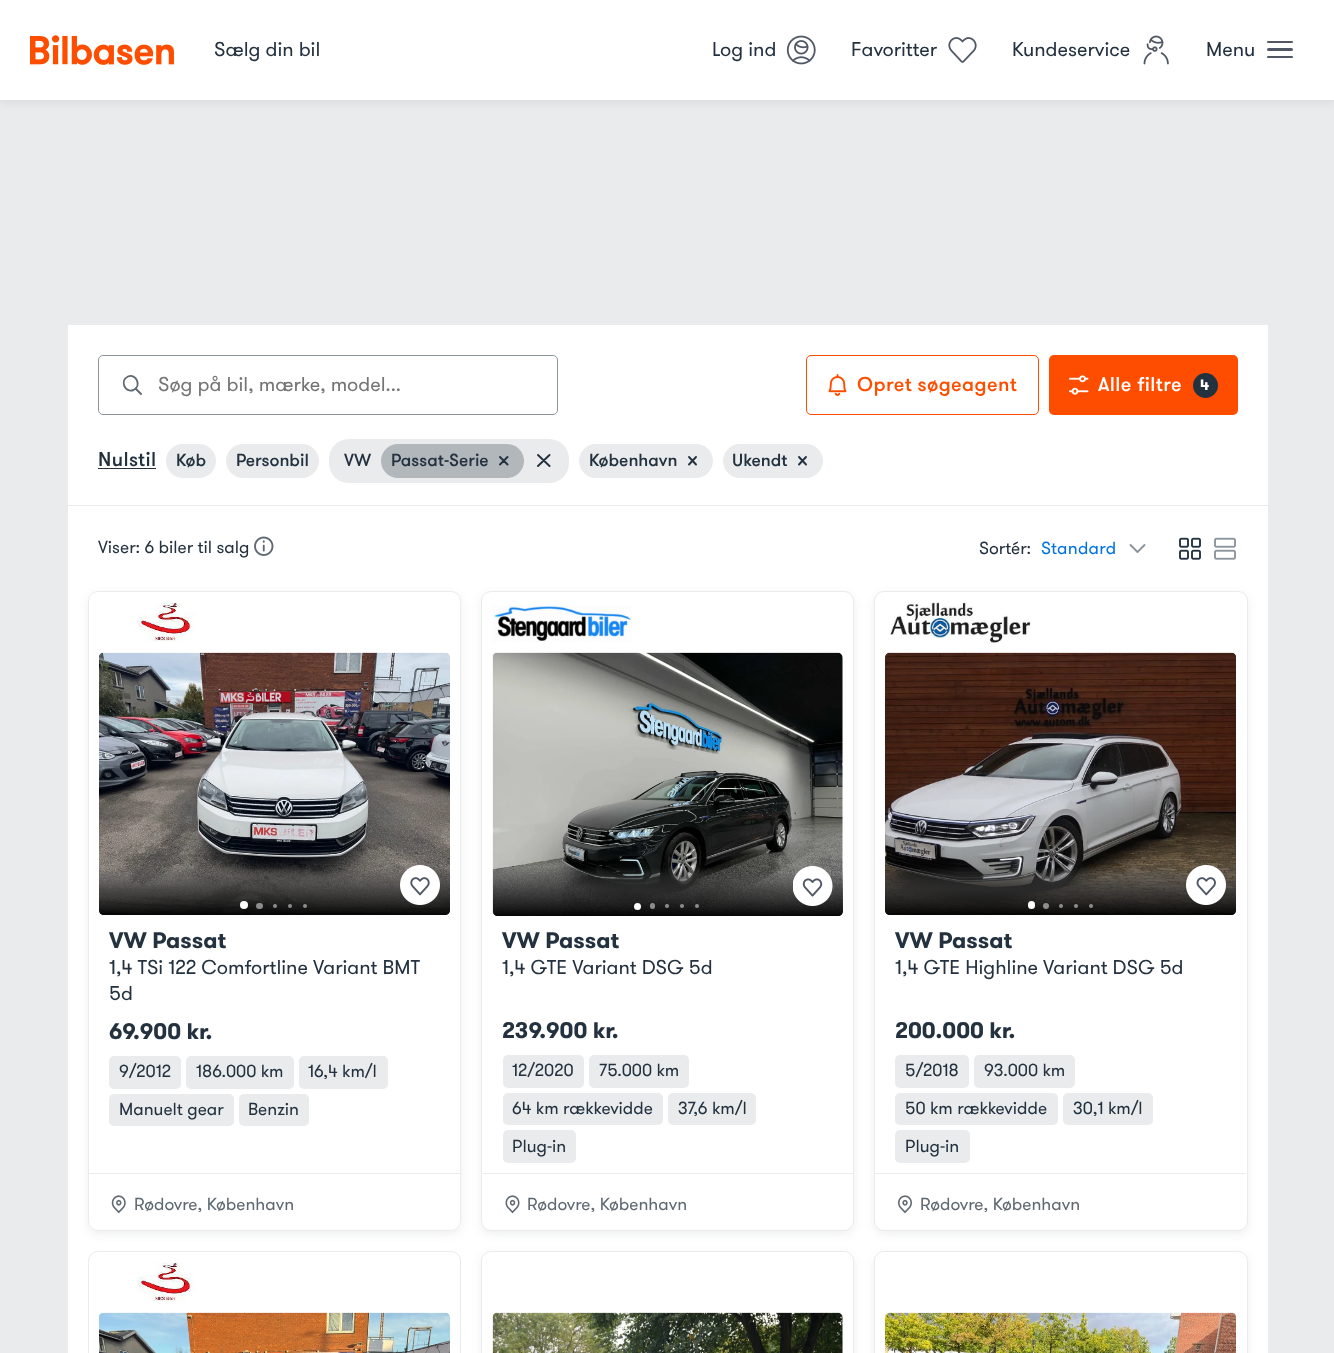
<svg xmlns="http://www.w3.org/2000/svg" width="1334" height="1353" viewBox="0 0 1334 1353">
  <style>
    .t1 { font: 20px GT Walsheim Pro; fill: #243240; }
    .t2 { font: 20px GT Walsheim Pro; fill: #757575; }
    .t3 { font: 500 20px GT Walsheim Pro; letter-spacing: 0.4px; fill: #ff4d00; }
    .t4 { font: 500 20px GT Walsheim Pro; letter-spacing: 0.4px; fill: #fff; }
    .t5 { font: bold 15px GT Walsheim Pro; letter-spacing: 0.4px; fill: #fff; }
    .t6 { font: 500 20px GT Walsheim Pro; letter-spacing: 0.4px; fill: #243240; }
    .t7 { font: 500 17.5px GT Walsheim Pro; fill: #243240; }
    .t8 { font: 17.5px GT Walsheim Pro; fill: #243240; }
    .t9 { font: 17.5px GT Walsheim Pro; letter-spacing: 0.25px; fill: #0173e4; }
    .t10 { font: bold 22.5px GT Walsheim Pro; fill: #243240; }
    .t11 { font: 17.5px GT Walsheim Pro; fill: #5f6972; }
  </style>
  <defs>
    <clipPath id="clip1"><path d="M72 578H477V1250H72ZM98 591H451C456.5 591 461 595.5 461 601V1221C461 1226.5 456.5 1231 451 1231H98C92.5 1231 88 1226.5 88 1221V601C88 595.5 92.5 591 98 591Z" clip-rule="evenodd"/></clipPath>
    <linearGradient id="g1" gradientUnits="userSpaceOnUse" x1="274" y1="863" x2="274" y2="915"><stop offset="0.07" stop-color="#4b4b4b" stop-opacity="0"/><stop offset="0.24" stop-color="#4b4b4b" stop-opacity="0.38"/><stop offset="0.51" stop-color="#353535" stop-opacity="0.76"/><stop offset="1" stop-color="#000" stop-opacity="0.95"/></linearGradient>
    <linearGradient id="g2" gradientUnits="userSpaceOnUse" x1="668" y1="863" x2="668" y2="916"><stop offset="0.07" stop-color="#4b4b4b" stop-opacity="0"/><stop offset="0.24" stop-color="#4b4b4b" stop-opacity="0.38"/><stop offset="0.51" stop-color="#353535" stop-opacity="0.76"/><stop offset="1" stop-color="#000" stop-opacity="0.95"/></linearGradient>
    <linearGradient id="g3" gradientUnits="userSpaceOnUse" x1="1061" y1="863" x2="1061" y2="915"><stop offset="0.07" stop-color="#4b4b4b" stop-opacity="0"/><stop offset="0.24" stop-color="#4b4b4b" stop-opacity="0.38"/><stop offset="0.51" stop-color="#353535" stop-opacity="0.76"/><stop offset="1" stop-color="#000" stop-opacity="0.95"/></linearGradient>
  </defs>
  <rect width="100%" height="100%" fill="#e9ebec"/>
  <rect x="0" y="3" width="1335" height="100" fill="#24324014" filter="blur(5px)"/>
  <rect x="0" y="0" width="1334" height="100" fill="#fff"/>
  <image x="30" y="35" width="144" height="30" href="images/1.png"/>
  <text x="214" y="56" class="t1">Sælg din bil</text>
  <text x="712" y="56" class="t1">Log ind</text>
  <image x="786" y="35" width="30" height="30" href="images/2.png"/>
  <text x="851" y="56" class="t1">Favoritter</text>
  <image x="948" y="37" width="29" height="26" href="images/3.png"/>
  <text x="1012" y="56" class="t1">Kundeservice</text>
  <image x="1143" y="35" width="26" height="30" href="images/4.png"/>
  <text x="1206" y="56" class="t1">Menu</text>
  <rect x="1267" y="41" width="26" height="2" rx="1" fill="#4f5864"/>
  <rect x="1267" y="48" width="26" height="3" rx="1.5" fill="#4f5864"/>
  <rect x="1267" y="56" width="26" height="2" rx="1" fill="#4f5864"/>
  <rect x="68" y="325" width="1200" height="1028" fill="#fff"/>
  <rect x="68" y="505" width="1200" height="1" fill="#e9ebec"/>
  <rect x="98.5" y="355.5" width="459" height="59" rx="4.5" fill="none" stroke="#8c949b"/>
  <path d="M133.5 390C142 386 136 373 128 376.5C119.5 380.5 125 393.5 133.5 390ZM136 389L141 394" fill="none" stroke="#5f6972" stroke-width="1.9" stroke-linecap="round" stroke-linejoin="round"/>
  <text x="158" y="391" class="t2">Søg på bil, mærke, model...</text>
  <rect x="806.5" y="355.5" width="232" height="59" rx="4.5" fill="none" stroke="#ff4d00"/>
  <image x="828" y="374" width="19" height="22" href="images/5.png"/>
  <text x="857" y="391" class="t3">Opret søgeagent</text>
  <rect x="1049" y="355" width="189" height="60" rx="5" fill="#ff4d00"/>
  <image x="1069" y="375" width="20" height="20" href="images/6.png"/>
  <text x="1098" y="391" class="t4">Alle filtre</text>
  <circle cx="1205.5" cy="385.5" r="12.5" fill="#243240"/>
  <text x="1200" y="390" class="t5">4</text>
  <text x="98" y="466" class="t6">Nulstil</text>
  <rect x="98" y="468" width="58" height="1" fill="#243240"/>
  <rect x="166" y="444" width="50" height="34" rx="17" fill="#e9ebec"/>
  <text x="176" y="466" class="t7">Køb</text>
  <rect x="226" y="444" width="93" height="34" rx="17" fill="#e9ebec"/>
  <text x="236" y="466" class="t7">Personbil</text>
  <rect x="329" y="439" width="240" height="44" rx="20" fill="#e9ebec"/>
  <text x="344" y="466" class="t7">VW</text>
  <rect x="381" y="444" width="143" height="34" rx="17" fill="#b2b7bc"/>
  <text x="391" y="466" class="t7">Passat-Serie</text>
  <path d="M507.5 457L500 464.5M500 457L507.5 464.5M549.5 455L538 466M538 455L549.5 466" fill="none" stroke="#243240" stroke-width="1.9" stroke-linecap="round" stroke-linejoin="round"/>
  <rect x="579" y="444" width="134" height="34" rx="17" fill="#e9ebec"/>
  <text x="589" y="466" class="t7">København</text>
  <path d="M696 457L689 464.5M689 457L696 464.5" fill="none" stroke="#243240" stroke-width="1.9" stroke-linecap="round" stroke-linejoin="round"/>
  <rect x="723" y="444" width="100" height="34" rx="17" fill="#e9ebec"/>
  <text x="732" y="466" class="t7">Ukendt</text>
  <path d="M806 457L799 464.5M799 457L806 464.5" fill="none" stroke="#243240" stroke-width="1.9" stroke-linecap="round" stroke-linejoin="round"/>
  <text x="98" y="553" class="t8">Viser: 6 biler til salg</text>
  <image x="254" y="536" width="20" height="20" href="images/7.png"/>
  <text x="979" y="554" class="t8">Sortér:</text>
  <text x="1041" y="554" class="t9">Standard</text>
  <path d="M1130.5 545L1137.5 552L1144.5 545" fill="none" stroke="#8c949b" stroke-width="1.9" stroke-linecap="round" stroke-linejoin="round"/>
  <image x="1179" y="537" width="22" height="23" href="images/8.png"/>
  <image x="1214" y="537" width="22" height="23" href="images/9.png"/>
  <g clip-path="url(#clip1)">
    <rect x="88" y="594" width="373" height="640" rx="10" fill="#24324014" filter="blur(5px)"/>
  </g>
  <rect x="88.5" y="591.5" width="372" height="639" rx="9.5" fill="none" stroke="#e9ebec"/>
  <image x="137" y="602" width="58" height="40" href="images/10.png"/>
  <image x="99" y="652" width="351" height="263" href="images/11.png"/>
  <path d="M99 863H450V910C450 913 448 915 445 915H104C101 915 99 913 99 910Z" fill="url(#g1)"/>
  <circle cx="244" cy="905" r="4" fill="#fff"/>
  <rect x="256" y="903" width="7" height="6" rx="3" fill="#ffffff80"/>
  <circle cx="275" cy="906" r="2" fill="#ffffff80"/>
  <circle cx="290" cy="906" r="2" fill="#ffffff80"/>
  <circle cx="305" cy="906" r="2" fill="#ffffff80"/>
  <image x="400" y="865" width="40" height="40" href="images/12.png"/>
  <text x="109" y="948" class="t10">VW Passat</text>
  <text x="109" y="974" class="t1">1,4 TSi 122 Comfortline Variant BMT</text>
  <text x="109" y="1000" class="t1">5d</text>
  <text x="109" y="1039" class="t10">69.900 kr.</text>
  <rect x="109" y="1056" width="72" height="33" rx="5" fill="#e9ebec"/>
  <text x="119" y="1077" class="t8">9/2012</text>
  <rect x="186" y="1056" width="108" height="33" rx="5" fill="#e9ebec"/>
  <text x="196" y="1077" class="t8">186.000 km</text>
  <rect x="299" y="1056" width="89" height="33" rx="5" fill="#e9ebec"/>
  <text x="308" y="1077" class="t8">16,4 km/l</text>
  <rect x="109" y="1094" width="125" height="32" rx="5" fill="#e9ebec"/>
  <text x="119" y="1115" class="t8">Manuelt gear</text>
  <rect x="239" y="1094" width="70" height="32" rx="5" fill="#e9ebec"/>
  <text x="248" y="1115" class="t8">Benzin</text>
  <rect x="89" y="1173" width="371" height="1" fill="#e9ebec"/>
  <image x="111" y="1195" width="15" height="19" href="images/13.png"/>
  <text x="134" y="1210" class="t11">Rødovre, København</text>
  <rect x="481" y="594" width="373" height="640" rx="10" fill="#24324014" filter="blur(5px)"/>
  <rect x="481.5" y="591.5" width="372" height="639" rx="9.5" fill="#fff" stroke="#e9ebec"/>
  <image x="493" y="605" width="139" height="37" href="images/14.png"/>
  <image x="492" y="652" width="351" height="264" href="images/15.png"/>
  <path d="M493 863H843V911C843 914 841 916 838 916H498C495 916 493 914 493 911Z" fill="url(#g2)"/>
  <circle cx="637.5" cy="906.5" r="3.5" fill="#fff"/>
  <rect x="650" y="903" width="5" height="6" rx="2.5" fill="#ffffff80"/>
  <circle cx="667" cy="906" r="2" fill="#ffffff80"/>
  <circle cx="682" cy="906" r="2" fill="#ffffff80"/>
  <circle cx="697" cy="906" r="2" fill="#ffffff80"/>
  <image x="793" y="866" width="40" height="40" href="images/16.png"/>
  <text x="502" y="948" class="t10">VW Passat</text>
  <text x="502" y="974" class="t1">1,4 GTE Variant DSG 5d</text>
  <text x="502" y="1038" class="t10">239.900 kr.</text>
  <rect x="503" y="1055" width="81" height="33" rx="5" fill="#e9ebec"/>
  <text x="512" y="1076" class="t8">12/2020</text>
  <rect x="589" y="1055" width="100" height="33" rx="5" fill="#e9ebec"/>
  <text x="599" y="1076" class="t8">75.000 km</text>
  <rect x="503" y="1093" width="160" height="32" rx="5" fill="#e9ebec"/>
  <text x="512" y="1114" class="t8">64 km rækkevidde</text>
  <rect x="668" y="1093" width="88" height="32" rx="5" fill="#e9ebec"/>
  <text x="678" y="1114" class="t8">37,6 km/l</text>
  <rect x="503" y="1130" width="73" height="33" rx="5" fill="#e9ebec"/>
  <text x="512" y="1152" class="t8">Plug-in</text>
  <rect x="483" y="1173" width="370" height="1" fill="#e9ebec"/>
  <image x="505" y="1195" width="15" height="19" href="images/17.png"/>
  <text x="527" y="1210" class="t11">Rødovre, København</text>
  <rect x="874" y="594" width="374" height="640" rx="10" fill="#24324014" filter="blur(5px)"/>
  <rect x="874.5" y="591.5" width="373" height="639" rx="9.5" fill="#fff" stroke="#e9ebec"/>
  <image x="890" y="602" width="141" height="41" href="images/18.png"/>
  <image x="885" y="652" width="351" height="263" href="images/19.png"/>
  <path d="M885 863H1236V910C1236 913 1234 915 1231 915H890C887 915 885 913 885 910Z" fill="url(#g3)"/>
  <rect x="1028" y="901" width="7" height="8" rx="3.5" fill="#fff"/>
  <circle cx="1046" cy="906" r="3" fill="#ffffff80"/>
  <circle cx="1061" cy="906" r="2" fill="#ffffff80"/>
  <circle cx="1076" cy="906" r="2" fill="#ffffff80"/>
  <circle cx="1091" cy="906" r="2" fill="#ffffff80"/>
  <image x="1186" y="865" width="40" height="40" href="images/20.png"/>
  <text x="895" y="948" class="t10">VW Passat</text>
  <text x="895" y="974" class="t1">1,4 GTE Highline Variant DSG 5d</text>
  <text x="895" y="1038" class="t10">200.000 kr.</text>
  <rect x="895" y="1055" width="74" height="33" rx="5" fill="#e9ebec"/>
  <text x="905" y="1076" class="t8">5/2018</text>
  <rect x="974" y="1055" width="101" height="33" rx="5" fill="#e9ebec"/>
  <text x="984" y="1076" class="t8">93.000 km</text>
  <rect x="895" y="1093" width="163" height="32" rx="5" fill="#e9ebec"/>
  <text x="905" y="1114" class="t8">50 km rækkevidde</text>
  <rect x="1063" y="1093" width="90" height="32" rx="5" fill="#e9ebec"/>
  <text x="1073" y="1114" class="t8">30,1 km/l</text>
  <rect x="895" y="1130" width="75" height="33" rx="5" fill="#e9ebec"/>
  <text x="905" y="1152" class="t8">Plug-in</text>
  <rect x="875" y="1173" width="371" height="1" fill="#e9ebec"/>
  <image x="898" y="1195" width="14" height="19" href="images/21.png"/>
  <text x="920" y="1210" class="t11">Rødovre, København</text>
  <rect x="88.5" y="1251.5" width="372" height="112" rx="9.5" fill="none" stroke="#e9ebec"/>
  <image x="137" y="1262" width="58" height="40" href="images/10.png"/>
  <image x="99" y="1312" width="351" height="41" href="images/22.png"/>
  <rect x="481" y="1254" width="373" height="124" rx="10" fill="#24324014" filter="blur(5px)"/>
  <rect x="481.5" y="1251.5" width="372" height="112" rx="9.5" fill="#fff" stroke="#e9ebec"/>
  <image x="492" y="1312" width="351" height="41" href="images/23.png"/>
  <rect x="874" y="1254" width="374" height="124" rx="10" fill="#24324014" filter="blur(5px)"/>
  <rect x="874.5" y="1251.5" width="373" height="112" rx="9.5" fill="#fff" stroke="#e9ebec"/>
  <image x="885" y="1312" width="351" height="41" href="images/24.png"/>
</svg>
